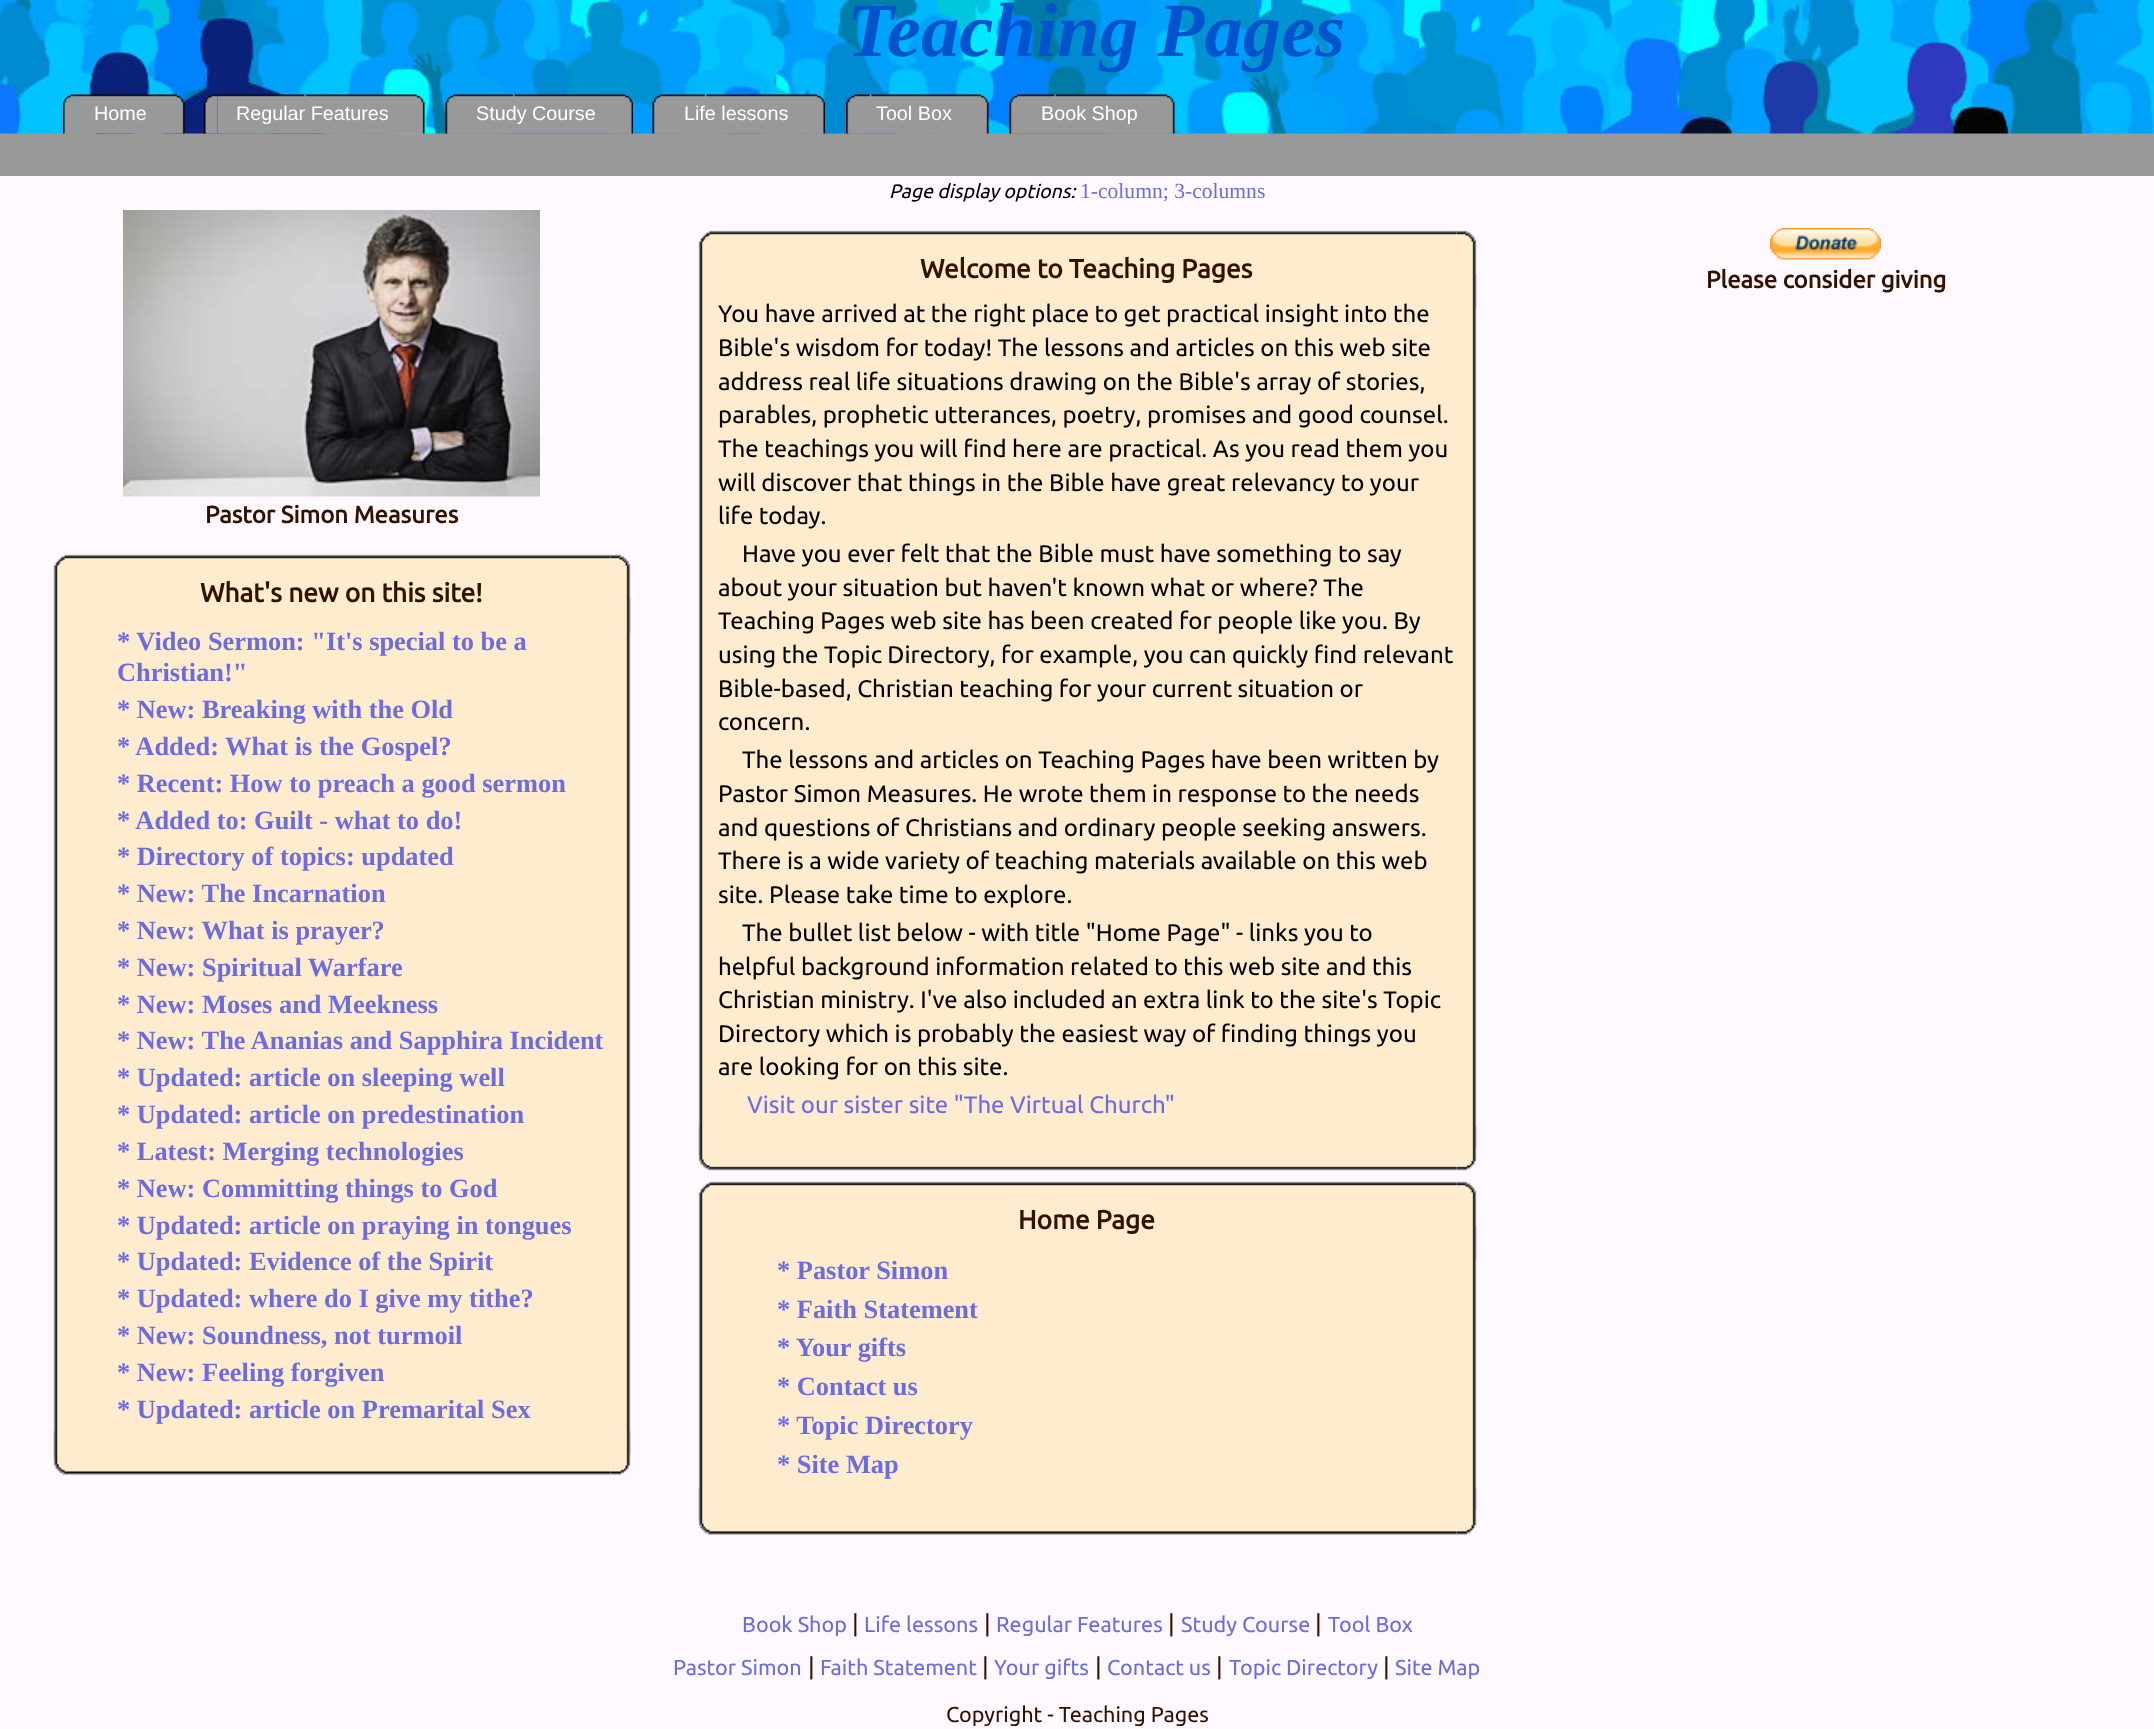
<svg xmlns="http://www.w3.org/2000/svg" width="2154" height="1729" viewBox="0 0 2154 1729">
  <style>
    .t1 { font: italic bold 76.75px Liberation Serif; fill: #05c; }
    .t2 { font: bold 24px Ubuntu; fill: #310; }
    .t3 { font: bold 26.4px Ubuntu; fill: #310; }
    .t4 { font: bold 26.4px Liberation Serif; fill: #6b6cdf; }
    .t5 { font: italic 19.5px Ubuntu; fill: #000; }
    .t6 { font: 21.6px Liberation Serif; fill: #6b6cdf; }
    .t7 { font: 24px Ubuntu; fill: #000; }
    .t8 { font: 24px Ubuntu; fill: #6b6cdf; }
    .t9 { font: 21.6px Ubuntu; fill: #6b6cdf; }
    .t10 { font: 24px Ubuntu; fill: #310; }
    .t11 { font: 21.6px Ubuntu; fill: #310; }
    .t12 { font: 19.75px Liberation Sans; fill: #fff; }
  </style>
  <rect width="100%" height="100%" fill="#fff9ff"/>
  <rect x="0" y="133" width="2154" height="43" fill="#999"/>
  <image x="0" y="0" width="2154" height="134" href="images/1.png"/>
  <text x="847" y="56" class="t1">Teaching Pages</text>
  <image x="123" y="210" width="417" height="287" href="images/2.png"/>
  <text x="205" y="523" class="t2">Pastor Simon Measures</text>
  <image x="53" y="554" width="558" height="906" href="images/3.png"/>
  <image x="610" y="554" width="21" height="79" href="images/4.png"/>
  <text x="200" y="602" class="t3">What's new on this site!</text>
  <image x="610" y="598" width="21" height="856" href="images/5.png"/>
  <text x="117" y="650" class="t4">* Video Sermon: "It's special to be a</text>
  <text x="117" y="681" class="t4">Christian!"</text>
  <text x="117" y="718" class="t4">* New: Breaking with the Old</text>
  <text x="117" y="755" class="t4">* Added: What is the Gospel?</text>
  <text x="117" y="792" class="t4">* Recent: How to preach a good sermon</text>
  <text x="117" y="829" class="t4">* Added to: Guilt - what to do!</text>
  <text x="117" y="865" class="t4">* Directory of topics: updated</text>
  <text x="117" y="902" class="t4">* New: The Incarnation</text>
  <text x="117" y="939" class="t4">* New: What is prayer?</text>
  <text x="117" y="976" class="t4">* New: Spiritual Warfare</text>
  <text x="117" y="1013" class="t4">* New: Moses and Meekness</text>
  <text x="117" y="1049" class="t4">* New: The Ananias and Sapphira Incident</text>
  <text x="117" y="1086" class="t4">* Updated: article on sleeping well</text>
  <text x="117" y="1123" class="t4">* Updated: article on predestination</text>
  <text x="117" y="1160" class="t4">* Latest: Merging technologies</text>
  <text x="117" y="1197" class="t4">* New: Committing things to God</text>
  <text x="117" y="1234" class="t4">* Updated: article on praying in tongues</text>
  <text x="117" y="1270" class="t4">* Updated: Evidence of the Spirit</text>
  <text x="117" y="1307" class="t4">* Updated: where do I give my tithe?</text>
  <text x="117" y="1344" class="t4">* New: Soundness, not turmoil</text>
  <text x="117" y="1381" class="t4">* New: Feeling forgiven</text>
  <text x="117" y="1418" class="t4">* Updated: article on Premarital Sex</text>
  <image x="53" y="1431" width="558" height="44" href="images/6.png"/>
  <image x="610" y="1431" width="21" height="44" href="images/7.png"/>
  <text x="889" y="198" class="t5">Page display options:</text>
  <text x="1080" y="198" class="t6">1-column; 3-columns</text>
  <image x="698" y="230" width="759" height="925" href="images/8.png"/>
  <image x="1456" y="230" width="21" height="79" href="images/9.png"/>
  <text x="920" y="278" class="t3">Welcome to Teaching Pages</text>
  <image x="1456" y="274" width="21" height="874" href="images/10.png"/>
  <text x="718" y="322" class="t7">You have arrived at the right place to get practical insight into the</text>
  <text x="718" y="356" class="t7">Bible's wisdom for today! The lessons and articles on this web site</text>
  <text x="718" y="390" class="t7">address real life situations drawing on the Bible's array of stories,</text>
  <text x="718" y="423" class="t7">parables, prophetic utterances, poetry, promises and good counsel.</text>
  <text x="718" y="457" class="t7">The teachings you will find here are practical. As you read them you</text>
  <text x="718" y="491" class="t7">will discover that things in the Bible have great relevancy to your</text>
  <text x="718" y="524" class="t7">life today.</text>
  <text x="742" y="562" class="t7">Have you ever felt that the Bible must have something to say</text>
  <text x="718" y="596" class="t7">about your situation but haven't known what or where? The</text>
  <text x="718" y="629" class="t7">Teaching Pages web site has been created for people like you. By</text>
  <text x="718" y="663" class="t7">using the Topic Directory, for example, you can quickly find relevant</text>
  <text x="718" y="697" class="t7">Bible-based, Christian teaching for your current situation or</text>
  <text x="718" y="730" class="t7">concern.</text>
  <text x="742" y="768" class="t7">The lessons and articles on Teaching Pages have been written by</text>
  <text x="718" y="802" class="t7">Pastor Simon Measures. He wrote them in response to the needs</text>
  <text x="718" y="836" class="t7">and questions of Christians and ordinary people seeking answers.</text>
  <text x="718" y="869" class="t7">There is a wide variety of teaching materials available on this web</text>
  <text x="718" y="903" class="t7">site. Please take time to explore.</text>
  <text x="742" y="941" class="t7">The bullet list below - with title "Home Page" - links you to</text>
  <text x="718" y="975" class="t7">helpful background information related to this web site and this</text>
  <text x="718" y="1008" class="t7">Christian ministry. I've also included an extra link to the site's Topic</text>
  <text x="718" y="1042" class="t7">Directory which is probably the easiest way of finding things you</text>
  <text x="718" y="1075" class="t7">are looking for on this site.</text>
  <text x="747" y="1113" class="t8">Visit our sister site "The Virtual Church"</text>
  <image x="698" y="1126" width="759" height="45" href="images/11.png"/>
  <image x="1456" y="1126" width="21" height="45" href="images/12.png"/>
  <image x="698" y="1181" width="759" height="339" href="images/13.png"/>
  <image x="1456" y="1181" width="21" height="79" href="images/4.png"/>
  <text x="1018" y="1229" class="t3">Home Page</text>
  <image x="1456" y="1225" width="21" height="286" href="images/14.png"/>
  <text x="777" y="1279" class="t4">* Pastor Simon</text>
  <text x="777" y="1318" class="t4">* Faith Statement</text>
  <text x="777" y="1356" class="t4">* Your gifts</text>
  <text x="777" y="1395" class="t4">* Contact us</text>
  <text x="777" y="1434" class="t4">* Topic Directory</text>
  <text x="777" y="1473" class="t4">* Site Map</text>
  <image x="698" y="1488" width="759" height="47" href="images/15.png"/>
  <image x="1456" y="1488" width="21" height="47" href="images/16.png"/>
  <text x="742" y="1632" class="t9">Book Shop</text>
  <text x="852" y="1632" class="t10">|</text>
  <text x="864" y="1632" class="t9">Life lessons</text>
  <text x="984" y="1632" class="t10">|</text>
  <text x="996" y="1632" class="t9">Regular Features</text>
  <text x="1168" y="1632" class="t10">|</text>
  <text x="1181" y="1632" class="t9">Study Course</text>
  <text x="1315" y="1632" class="t10">|</text>
  <text x="1328" y="1632" class="t9">Tool Box</text>
  <text x="673" y="1675" class="t9">Pastor Simon</text>
  <text x="808" y="1675" class="t10">|</text>
  <text x="820" y="1675" class="t9">Faith Statement</text>
  <text x="982" y="1675" class="t10">|</text>
  <text x="994" y="1675" class="t9">Your gifts</text>
  <text x="1095" y="1675" class="t10">|</text>
  <text x="1107" y="1675" class="t9">Contact us</text>
  <text x="1216" y="1675" class="t10">|</text>
  <text x="1229" y="1675" class="t9">Topic Directory</text>
  <text x="1383" y="1675" class="t10">|</text>
  <text x="1395" y="1675" class="t9">Site Map</text>
  <image x="1770" y="228" width="111" height="32" href="images/17.png"/>
  <text x="1706" y="288" class="t2">Please consider giving</text>
  <text x="946" y="1722" class="t11">Copyright - Teaching Pages</text>
  <image x="63" y="94" width="14" height="40" href="images/18.png"/>
  <image x="76" y="94" width="109" height="40" href="images/19.png"/>
  <text x="94" y="120" class="t12">Home</text>
  <image x="204" y="94" width="14" height="40" href="images/20.png"/>
  <image x="217" y="94" width="208" height="40" href="images/21.png"/>
  <text x="236" y="120" class="t12">Regular Features</text>
  <image x="445" y="94" width="14" height="40" href="images/22.png"/>
  <image x="459" y="94" width="174" height="40" href="images/23.png"/>
  <text x="476" y="120" class="t12">Study Course</text>
  <image x="652" y="94" width="14" height="40" href="images/24.png"/>
  <image x="666" y="94" width="159" height="40" href="images/25.png"/>
  <text x="684" y="120" class="t12">Life lessons</text>
  <image x="846" y="94" width="15" height="40" href="images/26.png"/>
  <image x="859" y="94" width="130" height="40" href="images/27.png"/>
  <text x="876" y="120" class="t12">Tool Box</text>
  <image x="1009" y="94" width="14" height="40" href="images/28.png"/>
  <image x="1023" y="94" width="152" height="40" href="images/29.png"/>
  <text x="1041" y="120" class="t12">Book Shop</text>
</svg>
